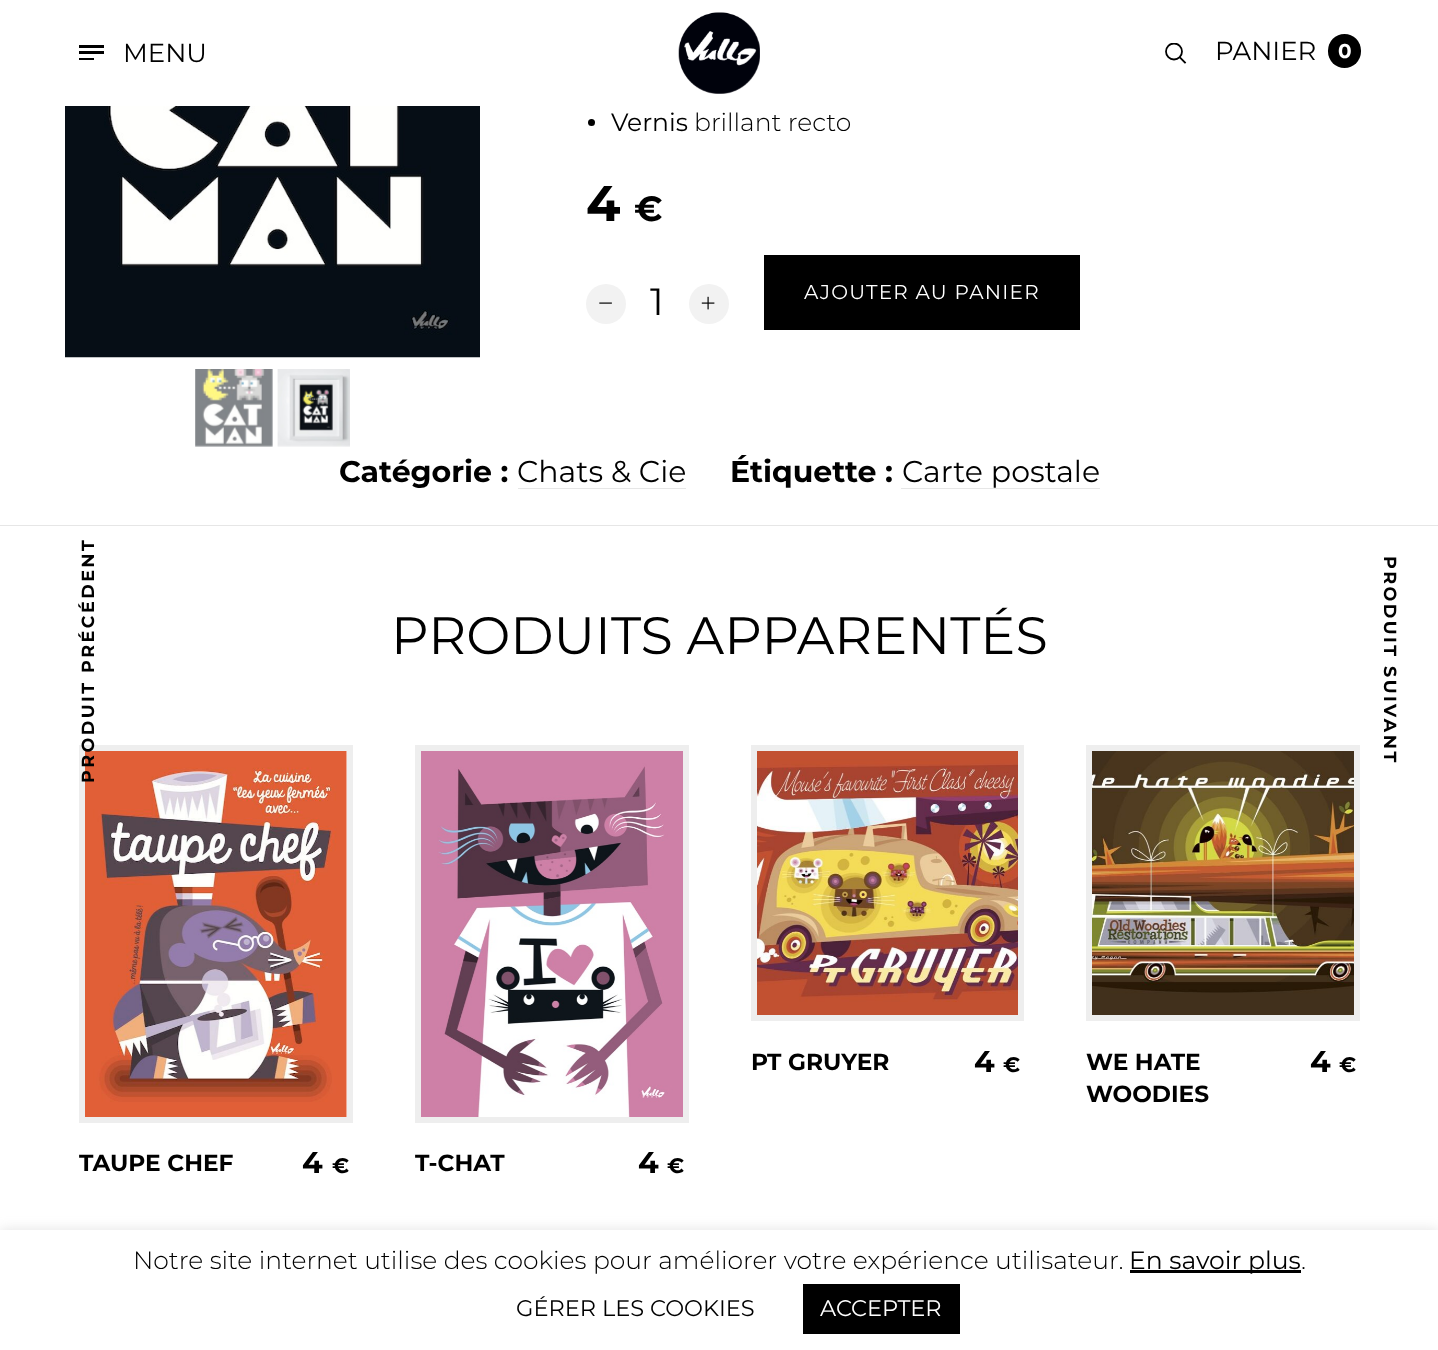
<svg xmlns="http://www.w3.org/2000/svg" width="1438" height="1350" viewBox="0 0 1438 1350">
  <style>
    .t1 { font: 26px Montserrat; fill: #000; }
    .t2 { font: bold 20px Montserrat; fill: #fff; }
    .t3 { font: 25px Montserrat; fill: #000; }
    .t4 { font: 300 25px Montserrat; fill: #000; }
    .t5 { font: bold 50px Montserrat; fill: #000; }
    .t6 { font: bold 35px Montserrat; fill: #000; }
    .t7 { font: 38px Montserrat; fill: #000; }
    .t8 { font: 20px Montserrat; letter-spacing: 1.25px; fill: #fff; }
    .t9 { font: bold 30px Montserrat; fill: #000; }
    .t10 { font: 30px Montserrat; fill: #000; }
    .t11 { font: 52.5px Montserrat; fill: #000; }
    .t12 { font: bold 23.25px Montserrat; fill: #000; }
    .t13 { font: bold 21px Montserrat; fill: #000; }
    .t14 { font: bold 17.5px Montserrat; letter-spacing: 2.5px; fill: #000; }
    .t15 { font: 22.5px Montserrat; fill: #000; }
    .t16 { font: 22.5px Montserrat; fill: #fff; }
  </style>
  <defs>
    <clipPath id="clip1"><rect x="1165" y="43" width="23" height="21"/></clipPath>
  </defs>
  <rect width="100%" height="100%" fill="#fff"/>
  <rect x="79" y="45" width="25" height="3" fill="#000"/>
  <rect x="79" y="51" width="25" height="3" fill="#000"/>
  <rect x="79" y="58" width="15" height="2" fill="#000"/>
  <text x="123" y="62" class="t1">MENU</text>
  <image x="678" y="12" width="82" height="82" href="images/1.png"/>
  <path d="M1185 62.5L1180 57.5" fill="none" stroke="#000" stroke-width="1.8" stroke-linecap="square"/>
  <g clip-path="url(#clip1)">
    <circle cx="1174" cy="51.5" r="8" fill="none" stroke="#000" stroke-width="1.8"/>
  </g>
  <text x="1215" y="60" class="t1">PANIER</text>
  <rect x="1328" y="34" width="33" height="34" rx="16.5" fill="#000"/>
  <text x="1338" y="58" class="t2">0</text>
  <image x="65" y="106" width="415" height="252" href="images/2.png"/>
  <image x="195" y="369" width="78" height="78" href="images/3.png"/>
  <image x="277" y="369" width="73" height="78" href="images/4.png"/>
  <circle cx="591.5" cy="122.5" r="3.5" fill="#000"/>
  <text x="611" y="131" class="t3">Vernis</text>
  <text x="694" y="131" class="t4">brillant recto</text>
  <text x="586" y="221" class="t5">4</text>
  <text x="634" y="221" class="t6">€</text>
  <circle cx="606" cy="304" r="20" fill="#f2f2f2"/>
  <image x="599" y="302" width="13" height="2" href="images/5.png"/>
  <text x="650" y="315" class="t7">1</text>
  <circle cx="709" cy="304" r="20" fill="#f2f2f2"/>
  <image x="701" y="296" width="14" height="14" href="images/6.png"/>
  <rect x="764" y="255" width="316" height="75" fill="#000"/>
  <text x="804" y="299" class="t8">AJOUTER AU PANIER</text>
  <rect x="0" y="525" width="1438" height="1" fill="#e6e6e6"/>
  <text x="339" y="482" class="t9">Catégorie :</text>
  <text x="517" y="482" class="t10">Chats &amp; Cie</text>
  <rect x="518" y="488" width="168" height="1" fill="#e6e6e6"/>
  <text x="730" y="482" class="t9">Étiquette :</text>
  <text x="902" y="482" class="t10">Carte postale</text>
  <rect x="901" y="488" width="199" height="1" fill="#e6e6e6"/>
  <text x="391" y="654" class="t11">PRODUITS APPARENTÉS</text>
  <rect x="754" y="748" width="267" height="270" fill="none" stroke="#eee" stroke-width="6"/>
  <image x="757" y="751" width="261" height="264" href="images/7.png"/>
  <text x="751" y="1070" class="t12">PT GRUYER</text>
  <text x="974" y="1072" class="t9">4</text>
  <text x="1003" y="1072" class="t13">€</text>
  <rect x="1089" y="748" width="268" height="270" fill="none" stroke="#eee" stroke-width="6"/>
  <image x="1092" y="751" width="262" height="264" href="images/8.png"/>
  <text x="1086" y="1070" class="t12">WE HATE</text>
  <text x="1086" y="1102" class="t12">WOODIES</text>
  <text x="1310" y="1072" class="t9">4</text>
  <text x="1339" y="1072" class="t13">€</text>
  <rect x="82" y="748" width="268" height="372" fill="none" stroke="#eee" stroke-width="6"/>
  <image x="85" y="751" width="262" height="366" href="images/9.png"/>
  <text x="79" y="1171" class="t12">TAUPE CHEF</text>
  <text x="302" y="1173" class="t9">4</text>
  <text x="332" y="1173" class="t13">€</text>
  <rect x="418" y="748" width="268" height="372" fill="none" stroke="#eee" stroke-width="6"/>
  <image x="421" y="751" width="262" height="366" href="images/10.png"/>
  <text x="415" y="1171" class="t12">T-CHAT</text>
  <text x="638" y="1173" class="t9">4</text>
  <text x="667" y="1173" class="t13">€</text>
  <text x="94" y="783" transform="rotate(-90 94 783)" class="t14">PRODUIT PRÉCÉDENT</text>
  <text x="1384" y="556" transform="rotate(90 1384 556)" class="t14">PRODUIT SUIVANT</text>
  <rect x="0" y="1229" width="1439" height="120" fill="#acabab4d" filter="blur(6px)"/>
  <rect x="0" y="1230" width="1438" height="120" fill="#fff"/>
  <text x="133" y="1269" class="t4">Notre site internet utilise des cookies pour améliorer votre expérience utilisateur.</text>
  <rect x="1130" y="1270" width="171" height="3" fill="#000"/>
  <text x="1129" y="1269" class="t3">En savoir plus</text>
  <text x="1301" y="1269" class="t4">.</text>
  <text x="516" y="1316" class="t15">GÉRER LES COOKIES</text>
  <rect x="803" y="1284" width="157" height="50" fill="#000"/>
  <text x="820" y="1316" class="t16">ACCEPTER</text>
</svg>
